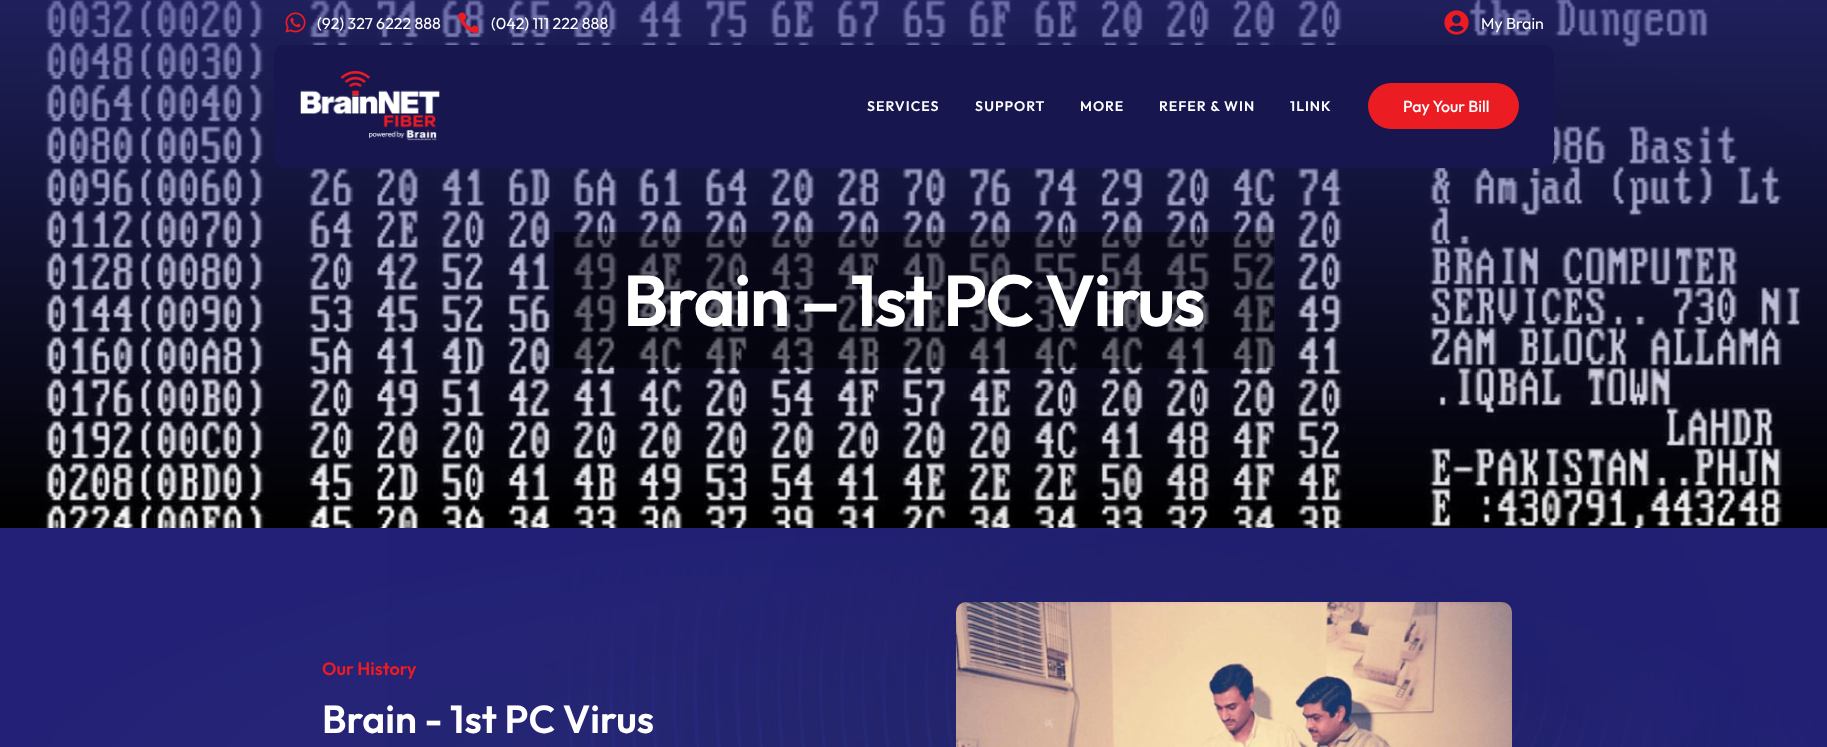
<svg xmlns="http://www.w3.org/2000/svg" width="1827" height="747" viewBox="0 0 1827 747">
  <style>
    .t1 { font: 16px Outfit; fill: #fff; }
    .t2 { font: 600 14px Outfit; letter-spacing: 1px; fill: #fff; }
    .t3 { font: 500 16px Outfit; fill: #fff; }
    .t4 { font: 600 72px Outfit; letter-spacing: -2px; fill: #fff; }
    .t5 { font: 600 18px Outfit; fill: #ec1c23; }
    .t6 { font: 600 39px Outfit; fill: #fff; }
  </style>
  <rect width="100%" height="100%" fill="#fff"/>
  <image x="0" y="0" width="1827" height="528" href="images/5.png"/>
  <rect x="554" y="232" width="720" height="136" fill="#0000007a"/>
  <image x="0" y="528" width="1827" height="219" href="images/6.png"/>
  <rect x="956" y="632" width="556" height="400" rx="10" fill="#0000004d" filter="blur(300px)"/>
  <image x="285" y="12" width="21" height="21" href="images/1.png"/>
  <text x="317" y="29" class="t1">(92) 327 6222 888</text>
  <image x="458" y="12" width="21" height="22" href="images/2.png"/>
  <text x="491" y="29" class="t1">(042) 111 222 888</text>
  <image x="1444" y="10" width="25" height="25" href="images/3.png"/>
  <text x="1481" y="29" class="t1">My Brain</text>
  <rect x="274" y="45" width="1280" height="123" rx="10" fill="#17164f"/>
  <image x="300" y="71" width="140" height="70" href="images/4.png"/>
  <text x="867" y="111" class="t2">SERVICES</text>
  <text x="975" y="111" class="t2">SUPPORT</text>
  <text x="1080" y="111" class="t2">MORE</text>
  <text x="1159" y="111" class="t2">REFER &amp; WIN</text>
  <text x="1290" y="111" class="t2">1LINK</text>
  <rect x="1368" y="83" width="151" height="46" rx="23" fill="#ec1c23"/>
  <text x="1403" y="112" class="t3">Pay Your Bill</text>
  <text x="623" y="326" class="t4">Brain – 1st PC Virus</text>
  <image x="956" y="602" width="556" height="145" href="images/7.png"/>
  <text x="322" y="675" class="t5">Our History</text>
  <text x="322" y="733" class="t6">Brain - 1st PC Virus</text>
</svg>
